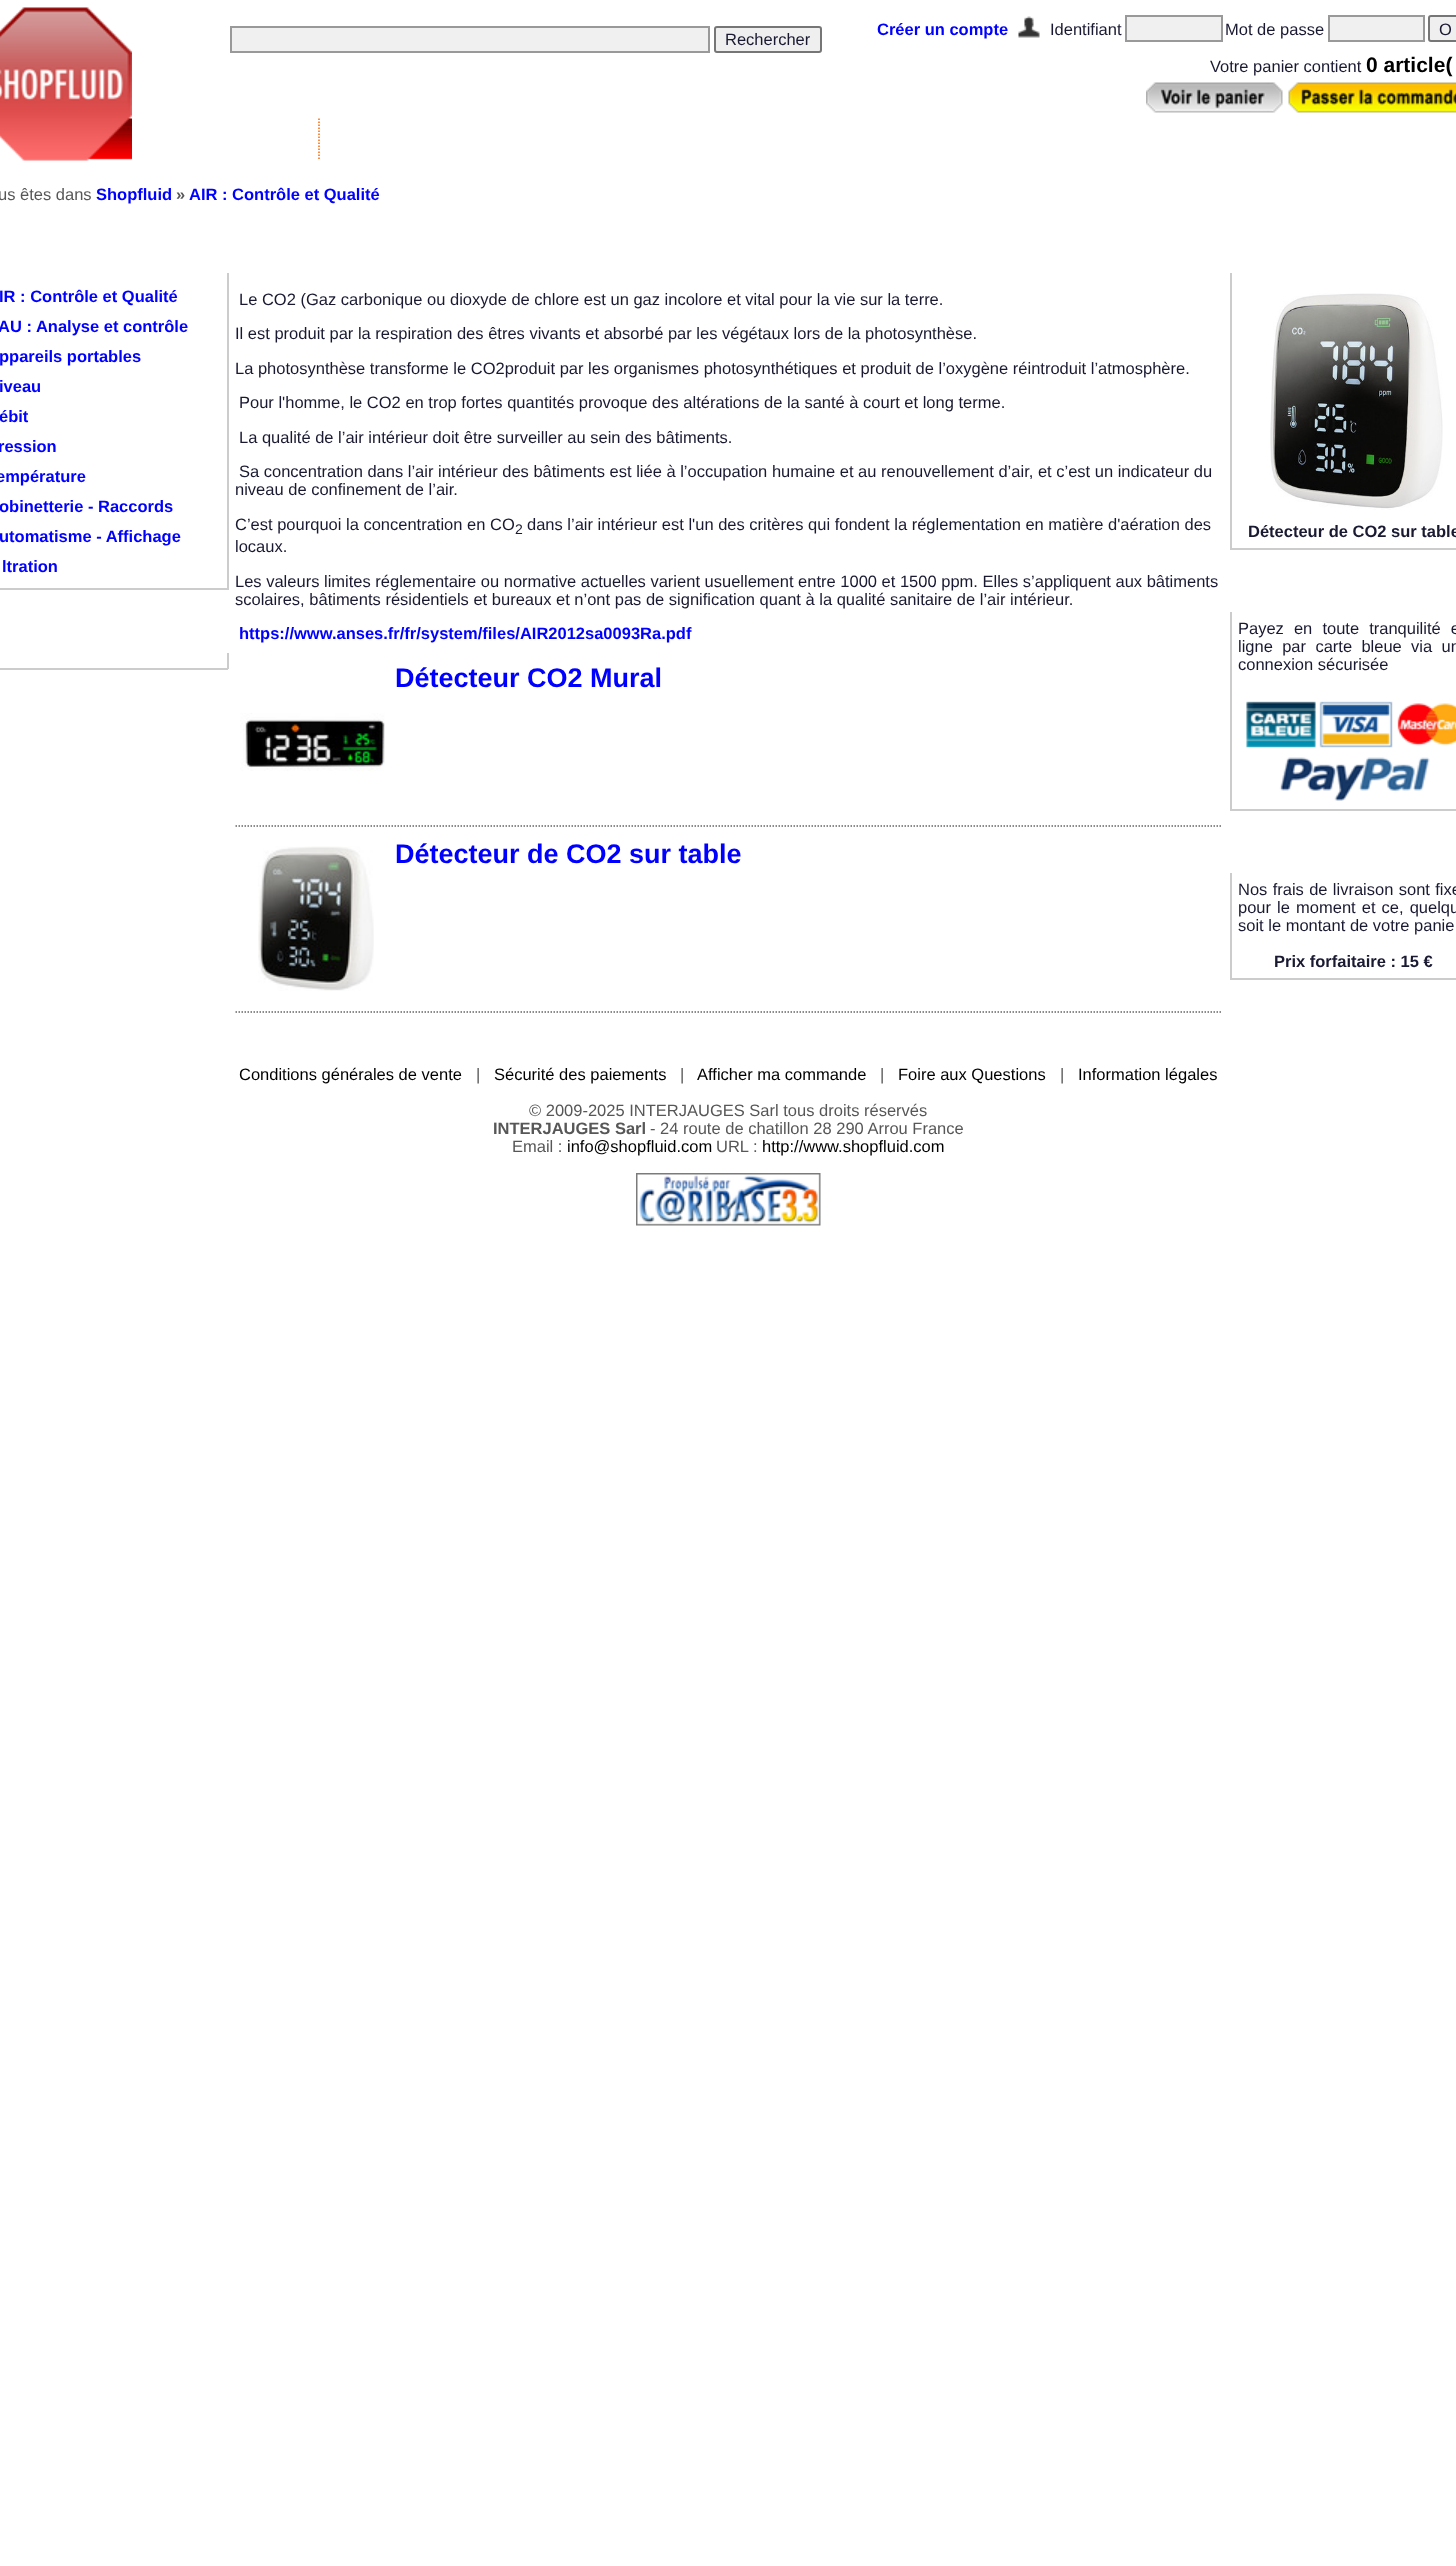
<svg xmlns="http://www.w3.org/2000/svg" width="1456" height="2566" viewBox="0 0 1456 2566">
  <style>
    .t1 { font: 16.5px Liberation Sans; fill: #191932; }
    .t2 { font: bold 16.5px Liberation Sans; fill: #00f; }
    .t3 { font: bold 21px Liberation Sans; fill: #000; }
    .t4 { font: 16.5px Liberation Sans; fill: #575757; }
    .t5 { font: bold 16.5px Liberation Sans; fill: #575757; }
    .t6 { font: 14px Liberation Sans; fill: #191932; }
    .t7 { font: bold 27px Liberation Sans; fill: #00f; }
    .t8 { font: bold 16.5px Liberation Sans; fill: #191932; }
    .t9 { font: 16.5px Liberation Sans; fill: #000; }
  </style>
  <rect width="100%" height="100%" fill="#fff"/>
  <image x="0" y="7" width="132" height="154" href="images/1.png"/>
  <rect x="231" y="27" width="478" height="25" fill="#f0f0f0" stroke="#999" stroke-width="2"/>
  <rect x="715" y="27" width="106" height="25" rx="2" fill="#efefef" stroke="#767676" stroke-width="2"/>
  <text x="725" y="45" class="t1">Rechercher</text>
  <text x="877" y="35" class="t2">Créer un compte</text>
  <image x="1018" y="16" width="22" height="22" href="images/2.png"/>
  <text x="1050" y="35" class="t1">Identifiant</text>
  <rect x="1126" y="16" width="96" height="25" fill="#f0f0f0" stroke="#999" stroke-width="2"/>
  <text x="1225" y="35" class="t1">Mot de passe</text>
  <rect x="1329" y="16" width="95" height="25" fill="#f0f0f0" stroke="#999" stroke-width="2"/>
  <rect x="1429" y="16" width="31" height="25" rx="2" fill="#efefef" stroke="#767676" stroke-width="2"/>
  <text x="1439" y="35" class="t1">O</text>
  <text x="1210" y="72" class="t1">Votre panier contient</text>
  <text x="1366" y="72" class="t3">0 article(</text>
  <image x="1146" y="82" width="137" height="31" href="images/3.png"/>
  <image x="1288" y="82" width="168" height="31" href="images/4.png"/>
  <path d="M319 118.5V159" fill="none" stroke="#f60" stroke-width="1.5" stroke-dasharray="1.5 1.5"/>
  <text x="-2" y="200" class="t4">us êtes dans</text>
  <text x="96" y="200" class="t2">Shopfluid</text>
  <text x="176" y="200" class="t5">»</text>
  <text x="189" y="200" class="t2">AIR : Contrôle et Qualité</text>
  <rect x="227" y="273" width="2" height="317" fill="#ccc"/>
  <rect x="0" y="588" width="228" height="2" fill="#ccc"/>
  <text x="-1" y="302" class="t2">IR : Contrôle et Qualité</text>
  <text x="-2" y="332" class="t2">AU : Analyse et contrôle</text>
  <text x="-1" y="362" class="t2">ppareils portables</text>
  <text x="-1" y="392" class="t2">iveau</text>
  <text x="-1" y="422" class="t2">ébit</text>
  <text x="-2" y="452" class="t2">ression</text>
  <text x="-4" y="482" class="t2">empérature</text>
  <text x="-1" y="512" class="t2">obinetterie - Raccords</text>
  <text x="-1" y="542" class="t2">utomatisme - Affichage</text>
  <text x="2" y="572" class="t2">ltration</text>
  <rect x="227" y="653" width="2" height="16" fill="#ccc"/>
  <rect x="0" y="668" width="228" height="2" fill="#ccc"/>
  <text x="239" y="305" class="t1">Le CO2 (Gaz carbonique ou dioxyde de chlore est un gaz incolore et vital pour la vie sur la terre.</text>
  <text x="235" y="339" class="t1">Il est produit par la respiration des êtres vivants et absorbé par les végétaux lors de la photosynthèse.</text>
  <text x="235" y="374" class="t1">La photosynthèse transforme le CO2produit par les organismes photosynthétiques et produit de l’oxygène réintroduit l’atmosphère.</text>
  <text x="239" y="408" class="t1">Pour l'homme, le CO2 en trop fortes quantités provoque des altérations de la santé à court et long terme.</text>
  <text x="239" y="443" class="t1">La qualité de l’air intérieur doit être surveiller au sein des bâtiments.</text>
  <text x="239" y="477" class="t1">Sa concentration dans l’air intérieur des bâtiments est liée à l’occupation humaine et au renouvellement d’air, et c’est un indicateur du</text>
  <text x="235" y="495" class="t1">niveau de confinement de l’air.</text>
  <text x="235" y="530" class="t1">C’est pourquoi la concentration en CO</text>
  <text x="515" y="534" class="t6">2</text>
  <text x="527" y="530" class="t1">dans l’air intérieur est l'un des critères qui fondent la réglementation en matière d'aération des</text>
  <text x="235" y="552" class="t1">locaux.</text>
  <text x="235" y="587" class="t1">Les valeurs limites réglementaire ou normative actuelles varient usuellement entre 1000 et 1500 ppm. Elles s’appliquent aux bâtiments</text>
  <text x="235" y="605" class="t1">scolaires, bâtiments résidentiels et bureaux et n’ont pas de signification quant à la qualité sanitaire de l’air intérieur.</text>
  <text x="239" y="639" class="t2">https://www.anses.fr/fr/system/files/AIR2012sa0093Ra.pdf</text>
  <path d="M235.5 826H1222.5" fill="none" stroke="#666" stroke-width="1.5" stroke-dasharray="1.5 1.5"/>
  <text x="395" y="687" class="t7">Détecteur CO2 Mural</text>
  <image x="240" y="713" width="145" height="58" href="images/5.png"/>
  <path d="M235.5 1012H1222.5" fill="none" stroke="#666" stroke-width="1.5" stroke-dasharray="1.5 1.5"/>
  <image x="258" y="846" width="116" height="145" href="images/6.png"/>
  <text x="395" y="863" class="t7">Détecteur de CO2 sur table</text>
  <rect x="1230" y="548" width="226" height="2" fill="#ccc"/>
  <rect x="1230" y="273" width="2" height="276" fill="#ccc"/>
  <image x="1270" y="293" width="173" height="217" href="images/7.png"/>
  <text x="1248" y="537" class="t8">Détecteur de CO2 sur table</text>
  <rect x="1230" y="809" width="226" height="2" fill="#ccc"/>
  <rect x="1230" y="612" width="2" height="198" fill="#ccc"/>
  <text x="1238" y="634" word-spacing="5.5" class="t1">Payez en toute tranquilité e</text>
  <text x="1238" y="652" word-spacing="4.75" class="t1">ligne par carte bleue via un</text>
  <text x="1238" y="670" class="t1">connexion sécurisée</text>
  <image x="1246" y="701" width="210" height="47" href="images/8.png"/>
  <image x="1279" y="757" width="151" height="44" href="images/9.png"/>
  <rect x="1230" y="978" width="226" height="2" fill="#ccc"/>
  <rect x="1230" y="873" width="2" height="107" fill="#ccc"/>
  <text x="1238" y="895" word-spacing="0.75" class="t1">Nos frais de livraison sont fixe</text>
  <text x="1238" y="913" word-spacing="1.5" class="t1">pour le moment et ce, quelqu</text>
  <text x="1238" y="931" class="t1">soit le montant de votre panie</text>
  <text x="1274" y="967" class="t8">Prix forfaitaire : 15 €</text>
  <text x="239" y="1080" class="t9">Conditions générales de vente</text>
  <text x="476" y="1080" class="t4">|</text>
  <text x="494" y="1080" class="t9">Sécurité des paiements</text>
  <text x="680" y="1080" class="t4">|</text>
  <text x="697" y="1080" class="t9">Afficher ma commande</text>
  <text x="880" y="1080" class="t4">|</text>
  <text x="898" y="1080" class="t9">Foire aux Questions</text>
  <text x="1060" y="1080" class="t4">|</text>
  <text x="1078" y="1080" class="t9">Information légales</text>
  <text x="529" y="1116" class="t4">© 2009-2025 INTERJAUGES Sarl tous droits réservés</text>
  <text x="493" y="1134" class="t5">INTERJAUGES Sarl</text>
  <text x="650" y="1134" class="t4">- 24 route de chatillon 28 290 Arrou France</text>
  <text x="512" y="1152" class="t4">Email :</text>
  <text x="567" y="1152" class="t9">info@shopfluid.com</text>
  <text x="716" y="1152" class="t4">URL :</text>
  <text x="762" y="1152" class="t9">http://www.shopfluid.com</text>
  <image x="636" y="1173" width="185" height="53" href="images/10.png"/>
</svg>
